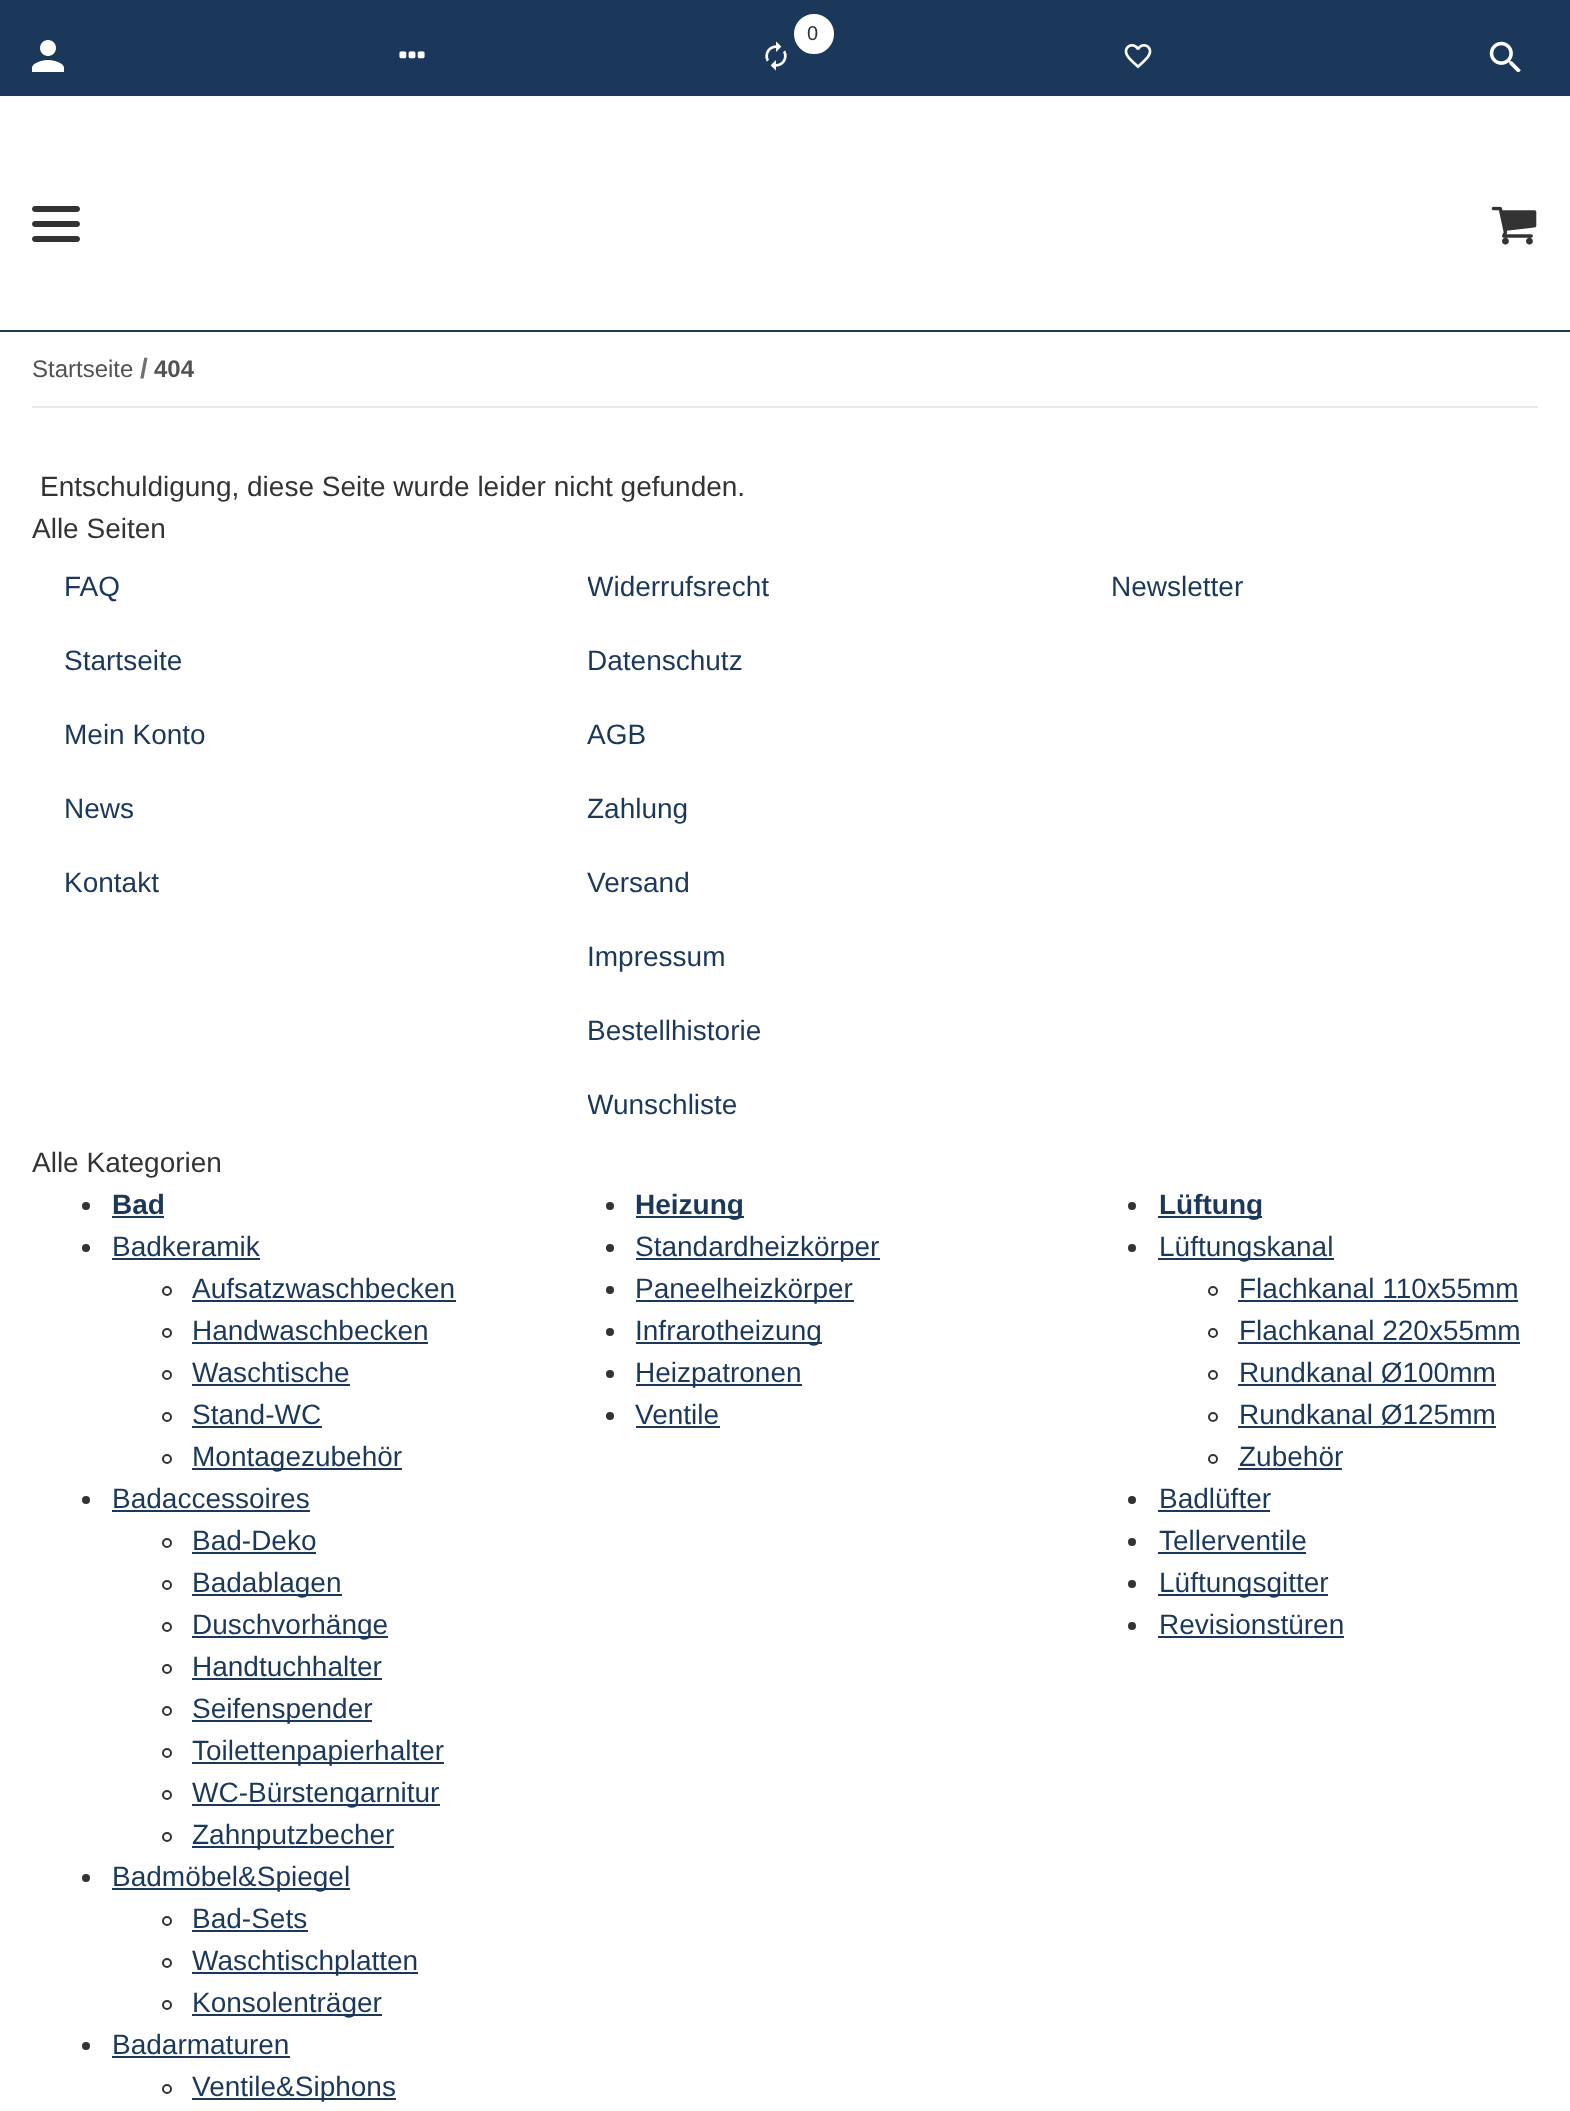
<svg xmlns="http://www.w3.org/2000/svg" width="1570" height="2111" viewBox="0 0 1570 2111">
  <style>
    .t1 { font: 20px Liberation Sans; fill: #333; }
    .t2 { font: 24px Liberation Sans; fill: #525252; }
    .t3 { font: bold 28px Liberation Sans; fill: #707070; }
    .t4 { font: bold 24px Liberation Sans; fill: #525252; }
    .t5 { font: 28px Liberation Sans; fill: #333; }
    .t6 { font: 28px Liberation Sans; fill: #1b385b; }
    .t7 { font: bold 28px Liberation Sans; fill: #1b385b; }
  </style>
  <defs>
    <clipPath id="clip1"><rect x="588" y="566" width="394" height="42"/></clipPath>
    <clipPath id="clip2"><rect x="588" y="1084" width="394" height="42"/></clipPath>
  </defs>
  <rect width="100%" height="100%" fill="#fff"/>
  <rect x="0" y="0" width="1570" height="96" fill="#1b385b"/>
  <circle cx="814" cy="34" r="19" fill="#fff" stroke="#fff" stroke-width="2"/>
  <text x="807" y="40" class="t1">0</text>
  <image x="765" y="41" width="22" height="30" href="images/1.png"/>
  <image x="32" y="40" width="32" height="32" href="images/2.png"/>
  <image x="399" y="51" width="26" height="8" href="images/3.png"/>
  <image x="1124" y="44" width="28" height="25" href="images/4.png"/>
  <image x="1489" y="41" width="32" height="31" href="images/5.png"/>
  <rect x="0" y="330" width="1570" height="2" fill="#1b385b"/>
  <image x="32" y="206" width="48" height="36" href="images/6.png"/>
  <image x="1491" y="206" width="46" height="39" href="images/7.png"/>
  <text x="32" y="377" class="t2">Startseite</text>
  <text x="140" y="378" class="t3">/</text>
  <text x="154" y="377" class="t4">404</text>
  <rect x="32" y="406" width="1506" height="2" fill="#e9e9e9"/>
  <text x="40" y="496" class="t5">Entschuldigung, diese Seite wurde leider nicht gefunden.</text>
  <text x="32" y="538" class="t5">Alle Seiten</text>
  <text x="64" y="596" class="t6">FAQ</text>
  <text x="64" y="670" class="t6">Startseite</text>
  <text x="64" y="744" class="t6">Mein Konto</text>
  <text x="64" y="818" class="t6">News</text>
  <text x="64" y="892" class="t6">Kontakt</text>
  <g clip-path="url(#clip1)">
    <text x="587" y="596" class="t6">Widerrufsrecht</text>
  </g>
  <text x="587" y="670" class="t6">Datenschutz</text>
  <text x="587" y="744" class="t6">AGB</text>
  <text x="587" y="818" class="t6">Zahlung</text>
  <text x="587" y="892" class="t6">Versand</text>
  <text x="587" y="966" class="t6">Impressum</text>
  <text x="1111" y="596" class="t6">Newsletter</text>
  <text x="587" y="1040" class="t6">Bestellhistorie</text>
  <g clip-path="url(#clip2)">
    <text x="587" y="1114" class="t6">Wunschliste</text>
  </g>
  <text x="32" y="1172" class="t5">Alle Kategorien</text>
  <circle cx="86" cy="1206" r="4" fill="#333"/>
  <text x="112" y="1214" class="t7">Bad</text>
  <rect x="112" y="1216" width="52" height="2" fill="#1b385b"/>
  <circle cx="86" cy="1248" r="4" fill="#333"/>
  <text x="112" y="1256" class="t6">Badkeramik</text>
  <rect x="112" y="1258" width="148" height="2" fill="#1b385b"/>
  <circle cx="167" cy="1291" r="4" fill="none" stroke="#333" stroke-width="2"/>
  <text x="192" y="1298" class="t6">Aufsatzwaschbecken</text>
  <rect x="192" y="1300" width="264" height="2" fill="#1b385b"/>
  <circle cx="167" cy="1333" r="4" fill="none" stroke="#333" stroke-width="2"/>
  <text x="192" y="1340" class="t6">Handwaschbecken</text>
  <rect x="192" y="1342" width="236" height="2" fill="#1b385b"/>
  <circle cx="167" cy="1375" r="4" fill="none" stroke="#333" stroke-width="2"/>
  <text x="192" y="1382" class="t6">Waschtische</text>
  <rect x="192" y="1384" width="158" height="2" fill="#1b385b"/>
  <circle cx="167" cy="1417" r="4" fill="none" stroke="#333" stroke-width="2"/>
  <text x="192" y="1424" class="t6">Stand-WC</text>
  <rect x="192" y="1426" width="130" height="2" fill="#1b385b"/>
  <circle cx="167" cy="1459" r="4" fill="none" stroke="#333" stroke-width="2"/>
  <rect x="192" y="1468" width="210" height="2" fill="#1b385b"/>
  <text x="192" y="1466" class="t6">Montagezubehör</text>
  <circle cx="86" cy="1500" r="4" fill="#333"/>
  <text x="112" y="1508" class="t6">Badaccessoires</text>
  <rect x="112" y="1510" width="198" height="2" fill="#1b385b"/>
  <circle cx="167" cy="1543" r="4" fill="none" stroke="#333" stroke-width="2"/>
  <text x="192" y="1550" class="t6">Bad-Deko</text>
  <rect x="192" y="1552" width="124" height="2" fill="#1b385b"/>
  <circle cx="167" cy="1585" r="4" fill="none" stroke="#333" stroke-width="2"/>
  <rect x="192" y="1594" width="150" height="2" fill="#1b385b"/>
  <text x="192" y="1592" class="t6">Badablagen</text>
  <circle cx="167" cy="1627" r="4" fill="none" stroke="#333" stroke-width="2"/>
  <rect x="192" y="1636" width="196" height="2" fill="#1b385b"/>
  <text x="192" y="1634" class="t6">Duschvorhänge</text>
  <circle cx="167" cy="1669" r="4" fill="none" stroke="#333" stroke-width="2"/>
  <text x="192" y="1676" class="t6">Handtuchhalter</text>
  <rect x="192" y="1678" width="190" height="2" fill="#1b385b"/>
  <circle cx="167" cy="1711" r="4" fill="none" stroke="#333" stroke-width="2"/>
  <rect x="192" y="1720" width="180" height="2" fill="#1b385b"/>
  <text x="192" y="1718" class="t6">Seifenspender</text>
  <circle cx="167" cy="1753" r="4" fill="none" stroke="#333" stroke-width="2"/>
  <rect x="192" y="1762" width="252" height="2" fill="#1b385b"/>
  <text x="192" y="1760" class="t6">Toilettenpapierhalter</text>
  <circle cx="167" cy="1795" r="4" fill="none" stroke="#333" stroke-width="2"/>
  <rect x="192" y="1804" width="248" height="2" fill="#1b385b"/>
  <text x="192" y="1802" class="t6">WC-Bürstengarnitur</text>
  <circle cx="167" cy="1837" r="4" fill="none" stroke="#333" stroke-width="2"/>
  <rect x="192" y="1846" width="202" height="2" fill="#1b385b"/>
  <text x="192" y="1844" class="t6">Zahnputzbecher</text>
  <circle cx="86" cy="1878" r="4" fill="#333"/>
  <rect x="112" y="1888" width="238" height="2" fill="#1b385b"/>
  <text x="112" y="1886" class="t6">Badmöbel&amp;Spiegel</text>
  <circle cx="167" cy="1921" r="4" fill="none" stroke="#333" stroke-width="2"/>
  <text x="192" y="1928" class="t6">Bad-Sets</text>
  <rect x="192" y="1930" width="116" height="2" fill="#1b385b"/>
  <circle cx="167" cy="1963" r="4" fill="none" stroke="#333" stroke-width="2"/>
  <rect x="192" y="1972" width="226" height="2" fill="#1b385b"/>
  <text x="192" y="1970" class="t6">Waschtischplatten</text>
  <circle cx="167" cy="2005" r="4" fill="none" stroke="#333" stroke-width="2"/>
  <rect x="192" y="2014" width="190" height="2" fill="#1b385b"/>
  <text x="192" y="2012" class="t6">Konsolenträger</text>
  <circle cx="86" cy="2046" r="4" fill="#333"/>
  <text x="112" y="2054" class="t6">Badarmaturen</text>
  <rect x="112" y="2056" width="178" height="2" fill="#1b385b"/>
  <circle cx="167" cy="2089" r="4" fill="none" stroke="#333" stroke-width="2"/>
  <rect x="192" y="2098" width="204" height="2" fill="#1b385b"/>
  <text x="192" y="2096" class="t6">Ventile&amp;Siphons</text>
  <circle cx="610" cy="1206" r="4" fill="#333"/>
  <rect x="636" y="1216" width="108" height="2" fill="#1b385b"/>
  <text x="635" y="1214" class="t7">Heizung</text>
  <circle cx="610" cy="1248" r="4" fill="#333"/>
  <rect x="636" y="1258" width="244" height="2" fill="#1b385b"/>
  <text x="635" y="1256" class="t6">Standardheizkörper</text>
  <circle cx="610" cy="1290" r="4" fill="#333"/>
  <rect x="636" y="1300" width="218" height="2" fill="#1b385b"/>
  <text x="635" y="1298" class="t6">Paneelheizkörper</text>
  <circle cx="610" cy="1332" r="4" fill="#333"/>
  <rect x="636" y="1342" width="186" height="2" fill="#1b385b"/>
  <text x="635" y="1340" class="t6">Infrarotheizung</text>
  <circle cx="610" cy="1374" r="4" fill="#333"/>
  <rect x="636" y="1384" width="166" height="2" fill="#1b385b"/>
  <text x="635" y="1382" class="t6">Heizpatronen</text>
  <circle cx="610" cy="1416" r="4" fill="#333"/>
  <text x="635" y="1424" class="t6">Ventile</text>
  <rect x="636" y="1426" width="84" height="2" fill="#1b385b"/>
  <circle cx="1132" cy="1206" r="4" fill="#333"/>
  <rect x="1158" y="1216" width="104" height="2" fill="#1b385b"/>
  <text x="1159" y="1214" class="t7">Lüftung</text>
  <circle cx="1132" cy="1248" r="4" fill="#333"/>
  <rect x="1158" y="1258" width="176" height="2" fill="#1b385b"/>
  <text x="1159" y="1256" class="t6">Lüftungskanal</text>
  <circle cx="1213" cy="1291" r="4" fill="none" stroke="#333" stroke-width="2"/>
  <text x="1239" y="1298" class="t6">Flachkanal 110x55mm</text>
  <rect x="1238" y="1300" width="280" height="2" fill="#1b385b"/>
  <circle cx="1213" cy="1333" r="4" fill="none" stroke="#333" stroke-width="2"/>
  <text x="1239" y="1340" class="t6">Flachkanal 220x55mm</text>
  <rect x="1238" y="1342" width="282" height="2" fill="#1b385b"/>
  <circle cx="1213" cy="1375" r="4" fill="none" stroke="#333" stroke-width="2"/>
  <text x="1239" y="1382" class="t6">Rundkanal Ø100mm</text>
  <rect x="1238" y="1384" width="258" height="2" fill="#1b385b"/>
  <circle cx="1213" cy="1417" r="4" fill="none" stroke="#333" stroke-width="2"/>
  <text x="1239" y="1424" class="t6">Rundkanal Ø125mm</text>
  <rect x="1238" y="1426" width="258" height="2" fill="#1b385b"/>
  <circle cx="1213" cy="1459" r="4" fill="none" stroke="#333" stroke-width="2"/>
  <text x="1239" y="1466" class="t6">Zubehör</text>
  <rect x="1238" y="1468" width="104" height="2" fill="#1b385b"/>
  <circle cx="1132" cy="1500" r="4" fill="#333"/>
  <text x="1159" y="1508" class="t6">Badlüfter</text>
  <rect x="1158" y="1510" width="112" height="2" fill="#1b385b"/>
  <circle cx="1132" cy="1542" r="4" fill="#333"/>
  <text x="1159" y="1550" class="t6">Tellerventile</text>
  <rect x="1158" y="1552" width="148" height="2" fill="#1b385b"/>
  <circle cx="1132" cy="1584" r="4" fill="#333"/>
  <rect x="1158" y="1594" width="170" height="2" fill="#1b385b"/>
  <text x="1159" y="1592" class="t6">Lüftungsgitter</text>
  <circle cx="1132" cy="1626" r="4" fill="#333"/>
  <text x="1159" y="1634" class="t6">Revisionstüren</text>
  <rect x="1158" y="1636" width="186" height="2" fill="#1b385b"/>
</svg>
